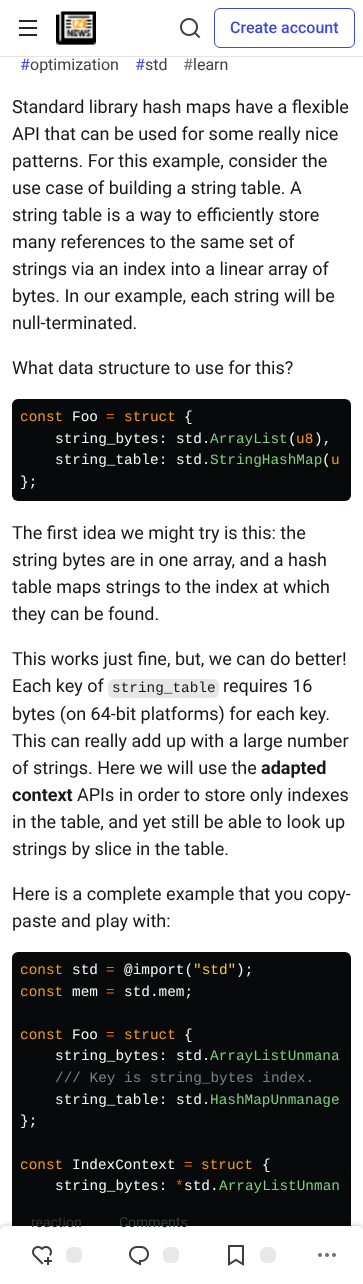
<svg xmlns="http://www.w3.org/2000/svg" width="363" height="1284" viewBox="0 0 363 1284">
  <style>
    .t1 { font: 500 16px Roboto; fill: #3b49df; }
    .t2 { font: 16px Roboto; fill: #3b49df; }
    .t3 { font: 16px Roboto; fill: #404040; }
    .t4 { font: 16px Roboto; fill: #696969; }
    .t5 { font: 18px Roboto; fill: #171717; }
    .t6 { font: 14.4px Liberation Mono; fill: #f39c12; }
    .t7 { font: 14.4px Liberation Mono; fill: #f8f8f2; }
    .t8 { font: 14.4px Liberation Mono; fill: #f9690e; }
    .t9 { font: 14.4px Liberation Mono; fill: #7ed07e; }
    .t10 { font: 14.4px Liberation Mono; fill: #171717; }
    .t11 { font: bold 18px Roboto; fill: #171717; }
    .t12 { font: 14.4px Liberation Mono; fill: #f2ca27; }
    .t13 { font: 14.4px Liberation Mono; fill: #808080; }
    .t14 { font: 14px Roboto; fill: #353331; }
    .t15 { font: 14px Roboto; fill: #38393a; }
  </style>
  <rect width="100%" height="100%" fill="#fff"/>
  <rect x="0" y="1" width="363" height="56" fill="#0000001a" filter="blur(0.5px)"/>
  <rect x="0" y="0" width="363" height="56" fill="#fff"/>
  <image x="19" y="20" width="18" height="16" href="images/1.png"/>
  <image x="56" y="11" width="40" height="34" href="images/2.png"/>
  <image x="180" y="18" width="21" height="21" href="images/3.png"/>
  <rect x="214.5" y="8.5" width="140" height="39" rx="5.5" fill="none" stroke="#3b49df"/>
  <text x="230" y="33" class="t1">Create account</text>
  <text x="20" y="70" class="t2">#</text>
  <text x="30" y="70" class="t3">optimization</text>
  <text x="135" y="70" class="t2">#</text>
  <text x="145" y="70" class="t3">std</text>
  <text x="183" y="70" class="t4">#</text>
  <text x="193" y="70" class="t3">learn</text>
  <text x="12" y="113" class="t5">Standard library hash maps have a flexible</text>
  <text x="12" y="140" class="t5">API that can be used for some really nice</text>
  <text x="12" y="167" class="t5">patterns. For this example, consider the</text>
  <text x="12" y="194" class="t5">use case of building a string table. A</text>
  <text x="12" y="221" word-spacing="0.25" class="t5">string table is a way to efficiently store</text>
  <text x="12" y="248" class="t5">many references to the same set of</text>
  <text x="12" y="275" class="t5">strings via an index into a linear array of</text>
  <text x="12" y="302" class="t5">bytes. In our example, each string will be</text>
  <text x="12" y="329" class="t5">null-terminated.</text>
  <text x="12" y="374" class="t5">What data structure to use for this?</text>
  <rect x="12" y="399" width="339" height="102" rx="6" fill="#08090a"/>
  <text x="20" y="421" class="t6">const</text>
  <text x="72" y="421" class="t7">Foo</text>
  <text x="106" y="421" class="t8">=</text>
  <text x="124" y="421" class="t6">struct</text>
  <text x="184" y="421" class="t7">{</text>
  <text x="55" y="443" class="t7">string_bytes: std.</text>
  <text x="210" y="443" class="t9">ArrayList</text>
  <text x="288" y="443" class="t7">(</text>
  <text x="296" y="443" class="t6">u8</text>
  <text x="314" y="443" class="t7">),</text>
  <text x="55" y="464" class="t7">string_table: std.</text>
  <text x="210" y="464" class="t9">StringHashMap</text>
  <text x="322" y="464" class="t7">(</text>
  <text x="331" y="464" class="t6">u</text>
  <text x="20" y="486" class="t7">};</text>
  <text x="12" y="539" class="t5">The first idea we might try is this: the</text>
  <text x="12" y="566" class="t5">string bytes are in one array, and a hash</text>
  <text x="12" y="593" class="t5">table maps strings to the index at which</text>
  <text x="12" y="620" class="t5">they can be found.</text>
  <text x="12" y="665" class="t5">This works just fine, but, we can do better!</text>
  <text x="12" y="692" class="t5">Each key of</text>
  <rect x="108" y="679" width="111" height="19" rx="6" fill="#e6e6e6"/>
  <text x="112" y="692" class="t10">string_table</text>
  <text x="223" y="692" class="t5">requires 16</text>
  <text x="12" y="720" class="t5">bytes (on 64-bit platforms) for each key.</text>
  <text x="12" y="747" class="t5">This can really add up with a large number</text>
  <text x="12" y="774" class="t5">of strings. Here we will use the</text>
  <text x="261" y="774" class="t11">adapted</text>
  <text x="12" y="801" class="t11">context</text>
  <text x="77" y="801" class="t5">APIs in order to store only indexes</text>
  <text x="12" y="828" class="t5">in the table, and yet still be able to look up</text>
  <text x="12" y="855" class="t5">strings by slice in the table.</text>
  <text x="12" y="900" class="t5">Here is a complete example that you copy-</text>
  <text x="12" y="927" class="t5">paste and play with:</text>
  <rect x="12" y="952" width="339" height="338" rx="6" fill="#08090a"/>
  <text x="20" y="974" class="t6">const</text>
  <text x="72" y="974" class="t7">std</text>
  <text x="106" y="974" class="t8">=</text>
  <text x="124" y="974" class="t7">@import(</text>
  <text x="193" y="974" class="t12">"std"</text>
  <text x="236" y="974" class="t7">);</text>
  <text x="20" y="996" class="t6">const</text>
  <text x="72" y="996" class="t7">mem</text>
  <text x="106" y="996" class="t8">=</text>
  <text x="124" y="996" class="t7">std.mem;</text>
  <text x="20" y="1039" class="t6">const</text>
  <text x="72" y="1039" class="t7">Foo</text>
  <text x="106" y="1039" class="t8">=</text>
  <text x="124" y="1039" class="t6">struct</text>
  <text x="184" y="1039" class="t7">{</text>
  <text x="55" y="1060" class="t7">string_bytes: std.</text>
  <text x="210" y="1060" class="t9">ArrayListUnmana</text>
  <text x="55" y="1082" class="t13">/// Key is string_bytes index.</text>
  <text x="55" y="1104" class="t7">string_table: std.</text>
  <text x="210" y="1104" class="t9">HashMapUnmanage</text>
  <text x="20" y="1125" class="t7">};</text>
  <text x="20" y="1169" class="t6">const</text>
  <text x="72" y="1169" class="t7">IndexContext</text>
  <text x="184" y="1169" class="t8">=</text>
  <text x="201" y="1169" class="t6">struct</text>
  <text x="262" y="1169" class="t7">{</text>
  <text x="55" y="1190" class="t7">string_bytes:</text>
  <text x="175" y="1190" class="t8">*</text>
  <text x="184" y="1190" class="t7">std.</text>
  <text x="219" y="1190" class="t9">ArrayListUnman</text>
  <rect x="0" y="1225" width="363" height="58" rx="6" fill="#00000033" filter="blur(2.5px)"/>
  <path d="M6 1226H357C360.5 1226 363 1228.5 363 1232V1284H0V1232C0 1228.5 2.5 1226 6 1226Z" fill="#fff"/>
  <text x="31" y="1227" class="t14">reaction</text>
  <image x="32" y="1246" width="20" height="19" href="images/4.png"/>
  <rect x="66" y="1247" width="16" height="16" rx="6" fill="#e8e8e8"/>
  <text x="119" y="1227" class="t15">Comments</text>
  <image x="129" y="1246" width="20" height="20" href="images/5.png"/>
  <rect x="163" y="1247" width="16" height="16" rx="6" fill="#e8e8e8"/>
  <image x="228" y="1245" width="16" height="21" href="images/6.png"/>
  <rect x="260" y="1247" width="16" height="16" rx="6" fill="#e8e8e8"/>
  <image x="318" y="1253" width="18" height="4" href="images/7.png"/>
</svg>
